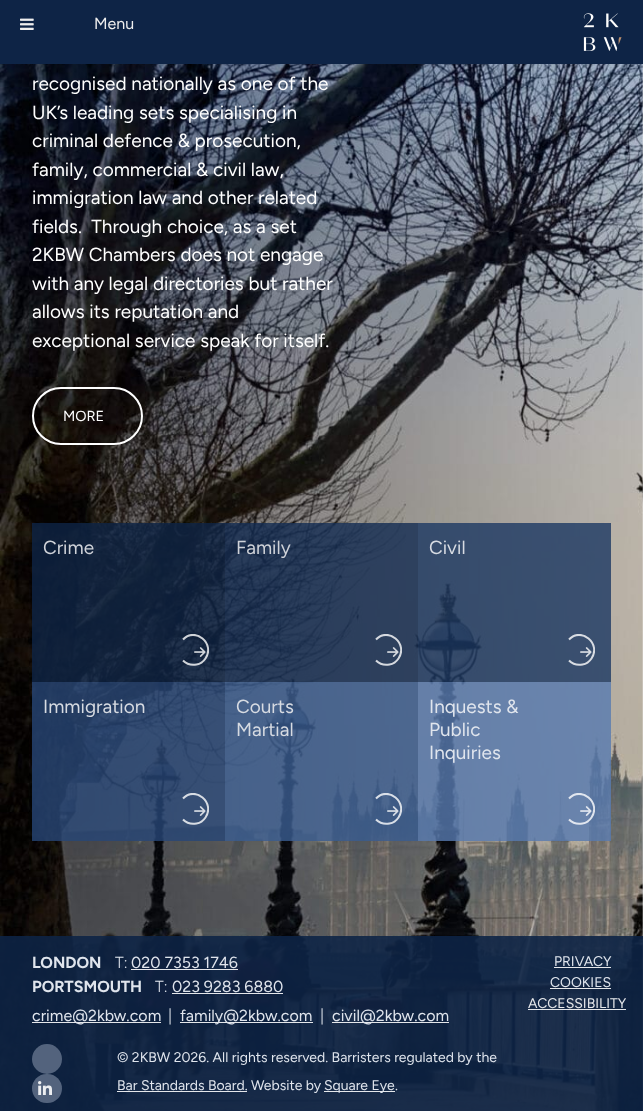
<svg xmlns="http://www.w3.org/2000/svg" width="643" height="1111" viewBox="0 0 643 1111">
  <style>
    .t1 { font: 16px Figtree; fill: #eee; }
    .t2 { font: 19px Figtree; fill: #fff; }
    .t3 { font: 14.5px Figtree; fill: #fff; }
    .t4 { font: 19px Figtree; fill: #cfd2d8; }
    .t5 { font: 19px Figtree; fill: #d7dbe2; }
    .t6 { font: 19px Figtree; fill: #e0e5ed; }
    .t7 { font: bold 16px Figtree; fill: #e0e5ed; }
    .t8 { font: 300 16px Figtree; fill: #e0e5ed; }
    .t9 { font: 16px Figtree; fill: #e0e5ed; }
    .t10 { font: 14px Figtree; fill: #e0e5ed; }
    .t11 { font: 14px Figtree; fill: #e6e8eb; }
  </style>
  <defs>
    <clipPath id="clip1"><rect x="182" y="634" width="27" height="32"/></clipPath>
    <clipPath id="clip2"><rect x="375" y="634" width="27" height="32"/></clipPath>
    <clipPath id="clip3"><rect x="568" y="634" width="27" height="32"/></clipPath>
    <clipPath id="clip4"><rect x="182" y="793" width="27" height="32"/></clipPath>
    <clipPath id="clip5"><rect x="375" y="793" width="27" height="32"/></clipPath>
    <clipPath id="clip6"><rect x="568" y="793" width="27" height="32"/></clipPath>
  </defs>
  <rect width="100%" height="100%" fill="#fff"/>
  <image x="0" y="64" width="643" height="1047" href="images/1.png"/>
  <rect x="0" y="0" width="643" height="64" fill="#0e2446"/>
  <image x="20" y="18" width="14" height="12" href="images/2.png"/>
  <text x="94" y="29" class="t1">Menu</text>
  <image x="583" y="13" width="39" height="38" href="images/3.png"/>
  <text x="32" y="90" class="t2">recognised nationally as one of the</text>
  <text x="32" y="119" class="t2">UK’s leading sets specialising in</text>
  <text x="32" y="147" class="t2">criminal defence &amp; prosecution,</text>
  <text x="32" y="176" class="t2">family, commercial &amp; civil law,</text>
  <text x="32" y="204" class="t2">immigration law and other related</text>
  <text x="32" y="233" class="t2" xml:space="preserve">fields.  Through choice, as a set</text>
  <text x="32" y="261" class="t2">2KBW Chambers does not engage</text>
  <text x="32" y="290" class="t2">with any legal directories but rather</text>
  <text x="32" y="318" class="t2">allows its reputation and</text>
  <text x="32" y="347" class="t2">exceptional service speak for itself.</text>
  <rect x="33" y="388" width="109" height="56" rx="28" fill="none" stroke="#fff" stroke-width="2"/>
  <text x="63" y="421" class="t3">MORE</text>
  <rect x="32" y="523" width="193" height="159" fill="#0e2446cc"/>
  <text x="43" y="554" class="t4">Crime</text>
  <image x="194" y="647" width="12" height="10" href="images/4.png"/>
  <g clip-path="url(#clip1)">
    <path d="M183 639.5C195 626.5 215.5 643.5 205.5 658.5C203.5 661.5 200 664 196.5 664.5C191.5 665.5 186.5 664 183 660.5" fill="none" stroke="#ffffffcc" stroke-width="2"/>
  </g>
  <rect x="225" y="523" width="193" height="159" fill="#132c53cc"/>
  <text x="236" y="554" class="t4">Family</text>
  <image x="387" y="647" width="12" height="10" href="images/5.png"/>
  <g clip-path="url(#clip2)">
    <path d="M376 639.5C388 626.5 408.5 643.5 398.5 658.5C396.5 661.5 393 664 389.5 664.5C384.5 665.5 379.5 664 376 660.5" fill="none" stroke="#d5d9df" stroke-width="2"/>
  </g>
  <rect x="418" y="523" width="193" height="159" fill="#1c3863cc"/>
  <text x="429" y="554" class="t5">Civil</text>
  <image x="580" y="647" width="12" height="10" href="images/6.png"/>
  <g clip-path="url(#clip3)">
    <path d="M569 639.5C581 626.5 601.5 643.5 591.5 658.5C589.5 661.5 586 664 582.5 664.5C577.5 665.5 572.5 664 569 660.5" fill="none" stroke="#d8dce2" stroke-width="2"/>
  </g>
  <rect x="32" y="682" width="193" height="159" fill="#274677cc"/>
  <text x="43" y="713" class="t5">Immigration</text>
  <image x="194" y="806" width="12" height="10" href="images/7.png"/>
  <g clip-path="url(#clip4)">
    <path d="M183 798.5C195 785.5 215.5 802.5 205.5 817.5C203.5 820.5 200 823 196.5 823.5C191.5 824.5 186.5 823 183 819.5" fill="none" stroke="#d7dce3" stroke-width="2"/>
  </g>
  <rect x="225" y="682" width="193" height="159" fill="#3a5c91cc"/>
  <text x="236" y="713" class="t5">Courts</text>
  <text x="236" y="736" class="t5">Martial</text>
  <image x="387" y="806" width="12" height="10" href="images/8.png"/>
  <g clip-path="url(#clip5)">
    <path d="M376 798.5C388 785.5 408.5 802.5 398.5 817.5C396.5 820.5 393 823 389.5 823.5C384.5 824.5 379.5 823 376 819.5" fill="none" stroke="#ffffffcc" stroke-width="2"/>
  </g>
  <rect x="418" y="682" width="193" height="159" fill="#587ab0cc"/>
  <text x="429" y="713" class="t6">Inquests &amp;</text>
  <text x="429" y="736" class="t6">Public</text>
  <text x="429" y="759" class="t6">Inquiries</text>
  <image x="580" y="806" width="12" height="10" href="images/9.png"/>
  <g clip-path="url(#clip6)">
    <path d="M569 798.5C581 785.5 601.5 802.5 591.5 817.5C589.5 820.5 586 823 582.5 823.5C577.5 824.5 572.5 823 569 819.5" fill="none" stroke="#ffffffcc" stroke-width="2"/>
  </g>
  <rect x="0" y="936" width="643" height="175" fill="#0e2446e3"/>
  <text x="32" y="968" class="t7">LONDON</text>
  <text x="115" y="968" class="t8">T:</text>
  <text x="131" y="968" class="t9">020 7353 1746</text>
  <rect x="131" y="969" width="107" height="1" fill="#ffffffe3"/>
  <text x="32" y="992" class="t7">PORTSMOUTH</text>
  <text x="155" y="992" class="t8">T:</text>
  <text x="172" y="992" class="t9">023 9283 6880</text>
  <rect x="172" y="993" width="111" height="1" fill="#ffffffe3"/>
  <rect x="32" y="1022" width="129" height="1" fill="#ffffffe3"/>
  <text x="32" y="1021" class="t9">crime@2kbw.com</text>
  <text x="168" y="1021" class="t8">|</text>
  <rect x="180" y="1022" width="133" height="1" fill="#ffffffe3"/>
  <text x="180" y="1021" class="t9">family@2kbw.com</text>
  <text x="320" y="1021" class="t8">|</text>
  <rect x="332" y="1022" width="117" height="1" fill="#ffffffe3"/>
  <text x="332" y="1021" class="t9">civil@2kbw.com</text>
  <circle cx="47" cy="1059" r="15" fill="#5c6c85e3"/>
  <rect x="32" y="1074" width="30" height="29" rx="14.5" fill="#5c6c85e3"/>
  <image x="38" y="1081" width="14" height="14" href="images/10.png"/>
  <text x="117" y="1062" class="t10">© 2KBW 2026. All rights reserved. Barristers regulated by the</text>
  <text x="117" y="1090" class="t10">Bar Standards Board.</text>
  <rect x="117" y="1091" width="130" height="1" fill="#ffffffe3"/>
  <text x="251" y="1090" class="t10">Website by</text>
  <rect x="324" y="1091" width="71" height="1" fill="#e6e8eb"/>
  <text x="324" y="1090" class="t10">Square Eye</text>
  <text x="395" y="1090" class="t10">.</text>
  <text x="554" y="966" class="t10">PRIVACY</text>
  <rect x="554" y="967" width="57" height="1" fill="#ffffffe3"/>
  <text x="550" y="987" class="t10">COOKIES</text>
  <rect x="550" y="988" width="61" height="1" fill="#ffffffe3"/>
  <text x="528" y="1008" class="t11">ACCESSIBILITY</text>
  <rect x="528" y="1009" width="98" height="1" fill="#ffffffe3"/>
</svg>
